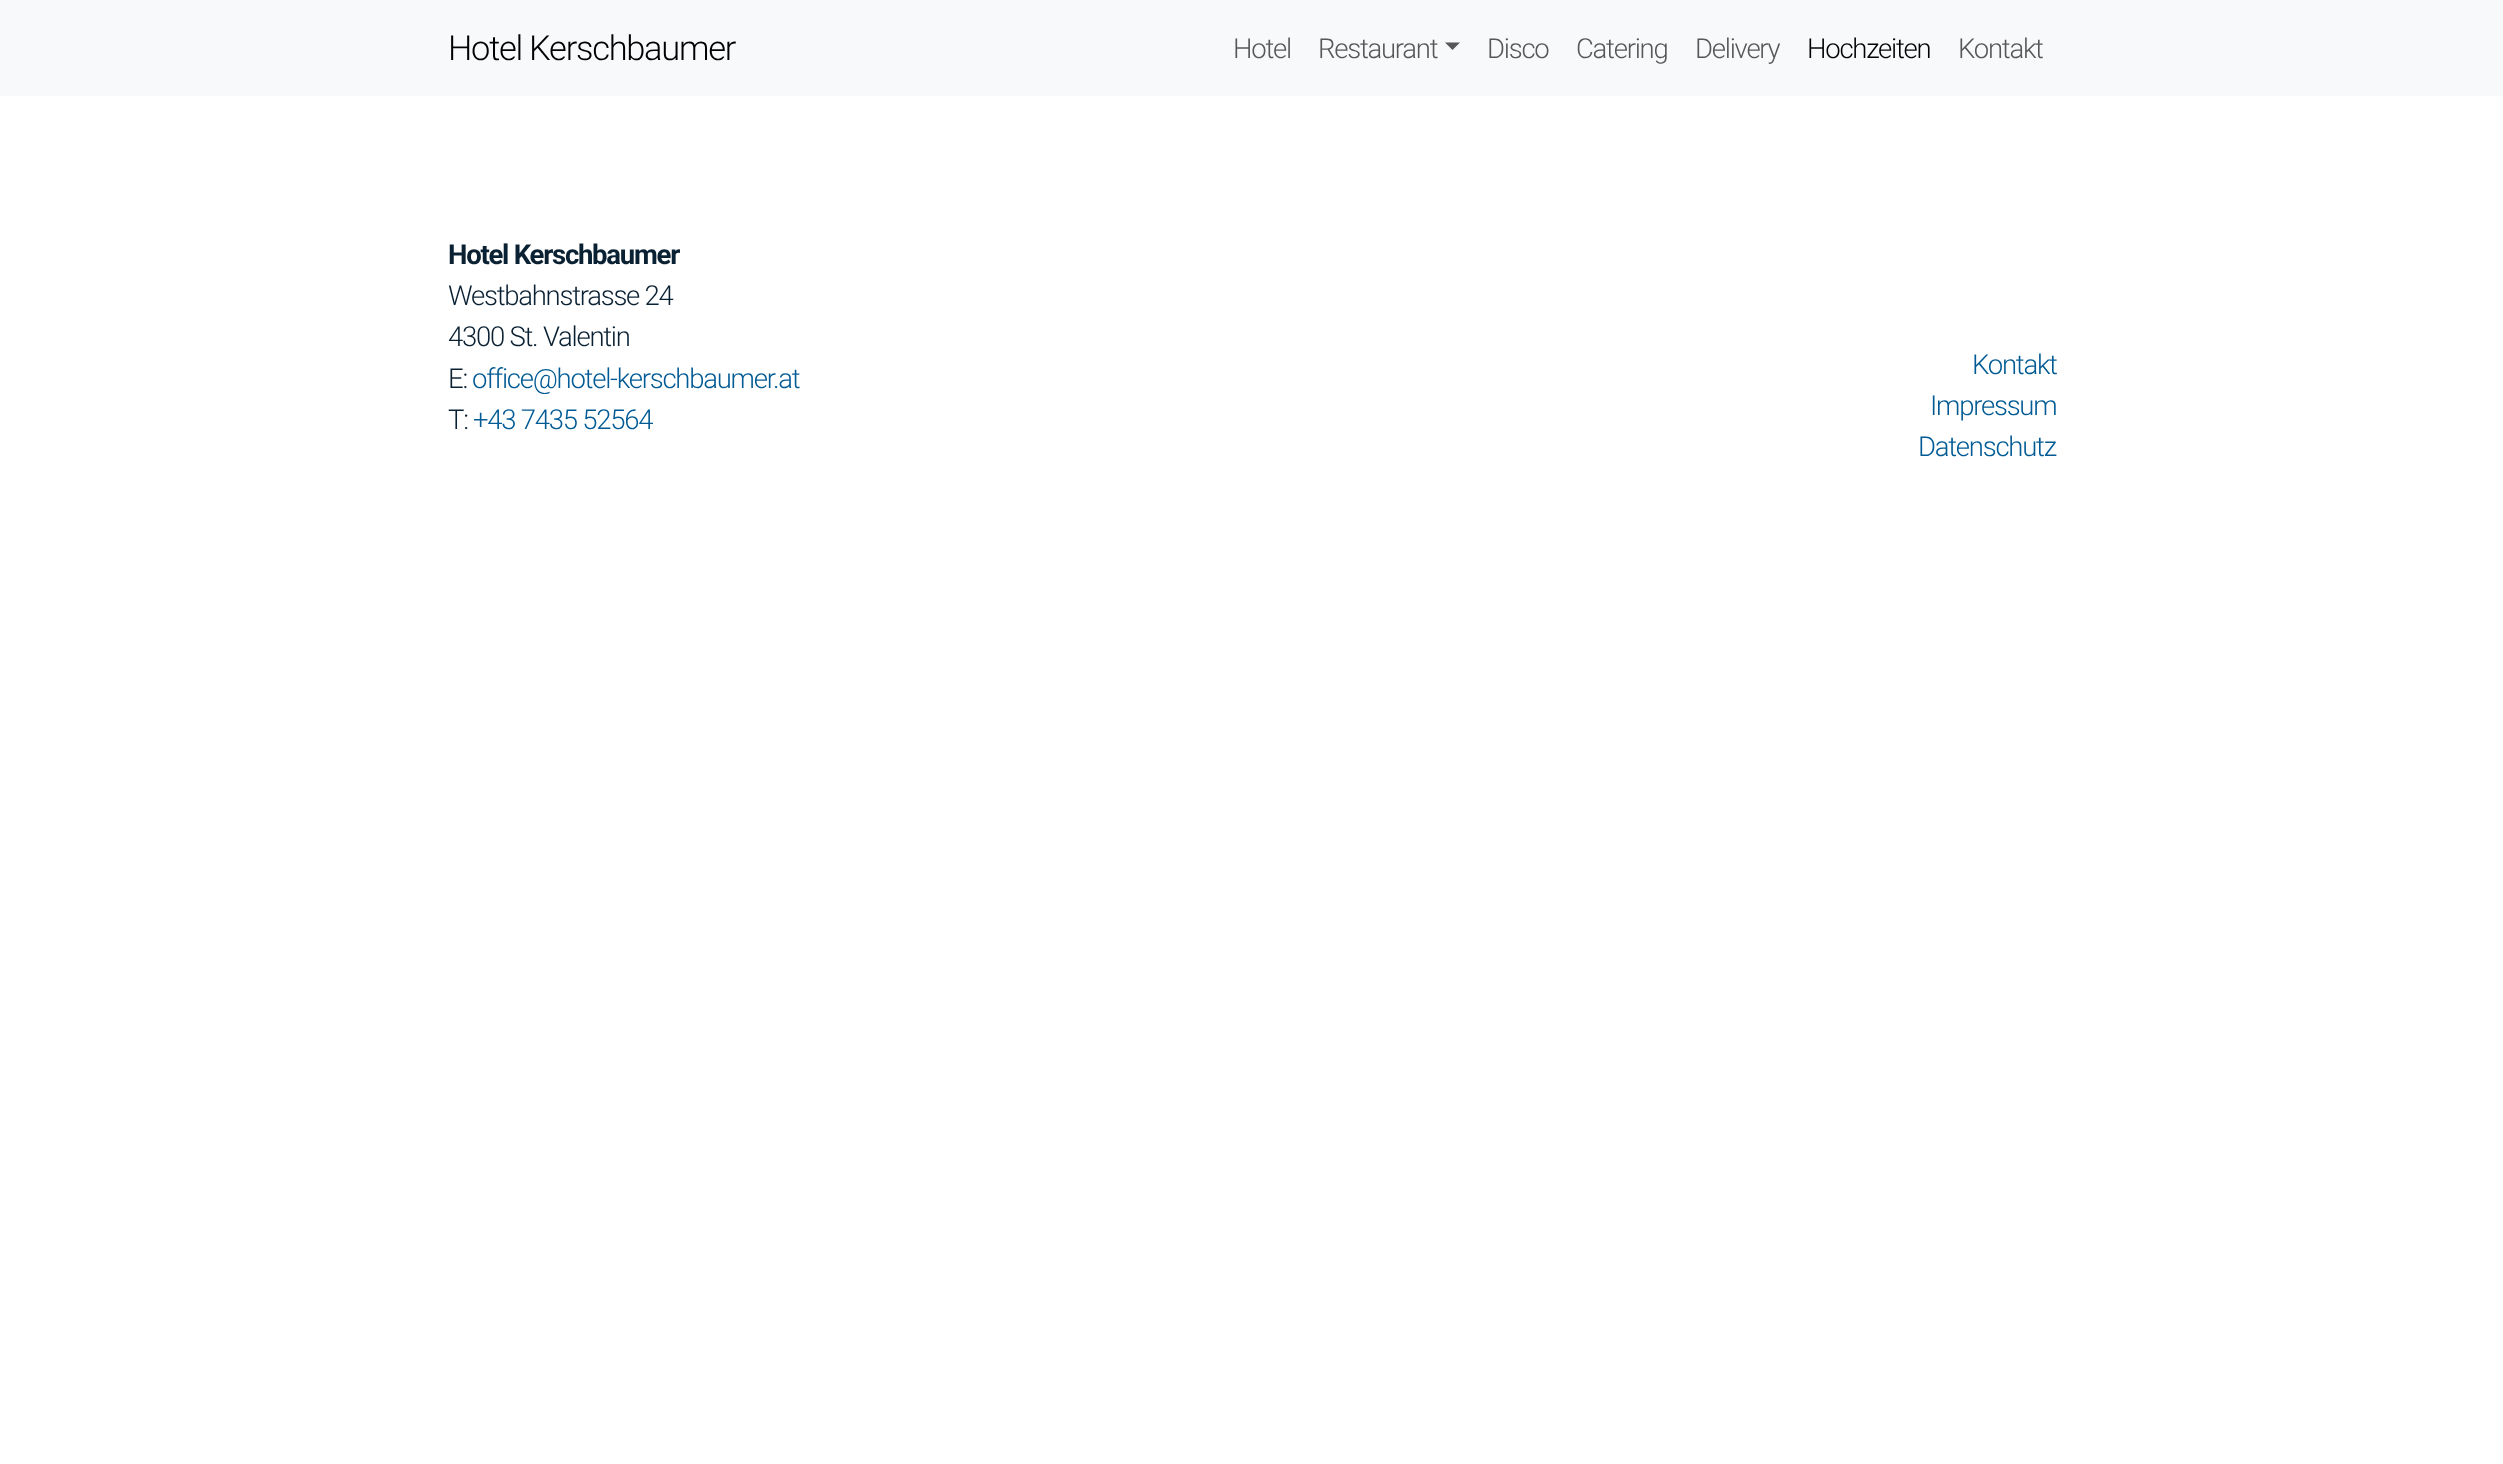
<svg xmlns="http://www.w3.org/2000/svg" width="2503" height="1464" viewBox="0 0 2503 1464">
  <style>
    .t1 { font: 300 34.4px Roboto; letter-spacing: -1.25px; fill: #000; }
    .t2 { font: 300 27.5px Roboto; letter-spacing: -1.25px; fill: #575758; }
    .t3 { font: 300 27.5px Roboto; letter-spacing: -1.25px; fill: #000; }
    .t4 { font: bold 27.5px Roboto; letter-spacing: -1.25px; fill: #0a2133; }
    .t5 { font: 300 27.5px Roboto; letter-spacing: -1.25px; fill: #0a2133; }
    .t6 { font: 300 27.5px Roboto; letter-spacing: -1.25px; fill: #005a94; }
  </style>
  <rect width="100%" height="100%" fill="#fff"/>
  <rect x="0" y="0" width="2503" height="96" fill="#f8f9fa"/>
  <text x="448" y="60" class="t1">Hotel Kerschbaumer</text>
  <text x="1233" y="58" class="t2">Hotel</text>
  <text x="1318" y="58" class="t2">Restaurant</text>
  <path d="M1445 42.5H1460L1452.5 50Z" fill="#575758"/>
  <text x="1487" y="58" class="t2">Disco</text>
  <text x="1576" y="58" class="t2">Catering</text>
  <text x="1695" y="58" class="t2">Delivery</text>
  <text x="1807" y="58" class="t3">Hochzeiten</text>
  <text x="1958" y="58" class="t2">Kontakt</text>
  <text x="448" y="264" class="t4">Hotel Kerschbaumer</text>
  <text x="448" y="305" class="t5">Westbahnstrasse 24</text>
  <text x="448" y="346" class="t5">4300 St. Valentin</text>
  <text x="448" y="388" class="t5">E:</text>
  <text x="472" y="388" class="t6">office@hotel-kerschbaumer.at</text>
  <text x="448" y="429" class="t5">T:</text>
  <text x="473" y="429" class="t6">+43 7435 52564</text>
  <text x="1972" y="374" class="t6">Kontakt</text>
  <text x="1930" y="415" class="t6">Impressum</text>
  <text x="1918" y="456" class="t6">Datenschutz</text>
</svg>
